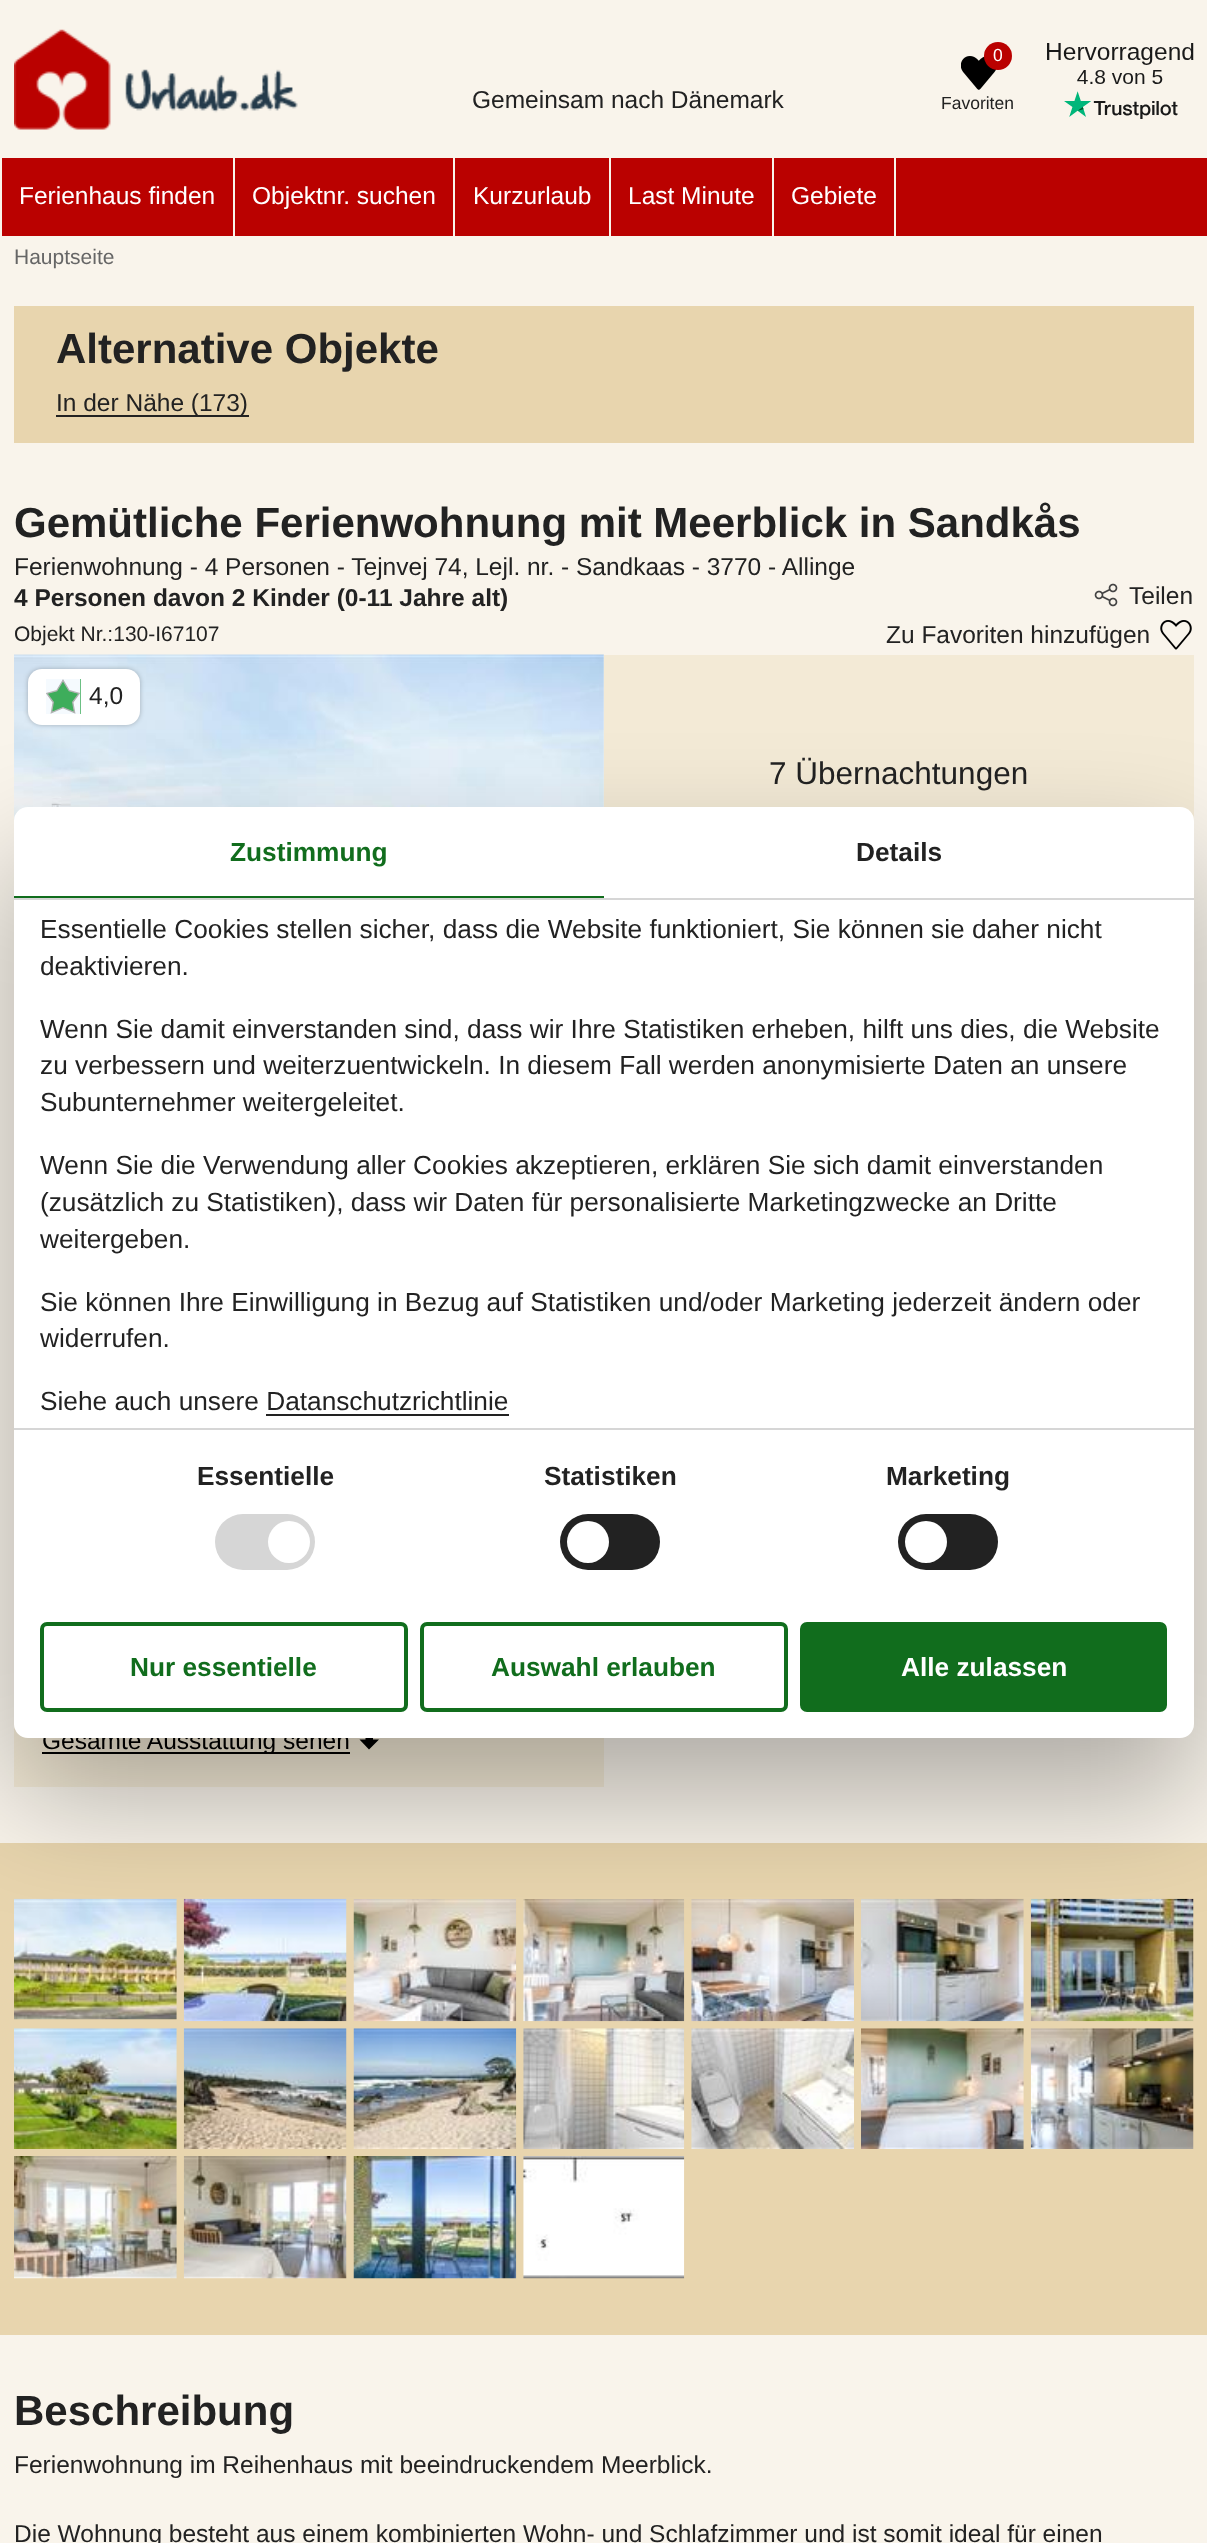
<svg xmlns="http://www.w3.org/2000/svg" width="1207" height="2543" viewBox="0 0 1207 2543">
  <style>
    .t1 { font: 24.5px Liberation Sans; fill: #222; }
    .t2 { font: 17.5px Liberation Sans; fill: #fff; }
    .t3 { font: 17.5px Liberation Sans; fill: #222; }
    .t4 { font: 24.5px Liberation Sans; fill: #fff; }
    .t5 { font: 21px Liberation Sans; fill: #666; }
    .t6 { font: bold 42px Liberation Sans; fill: #222; }
    .t7 { font: bold 24.5px Liberation Sans; fill: #222; }
    .t8 { font: 21px Liberation Sans; fill: #222; }
    .t9 { font: 31.5px Liberation Sans; fill: #222; }
    .t10 { font: 24.5px Liberation Sans; fill: #000; }
    .t11 { font: bold 26.25px Liberation Sans; fill: #116d1d; }
    .t12 { font: bold 26.25px Liberation Sans; fill: #222; }
    .t13 { font: 26.25px Liberation Sans; fill: #222; }
    .t14 { font: bold 26.25px Liberation Sans; fill: #fff; }
  </style>
  <rect width="100%" height="100%" fill="#f9f4eb"/>
  <image x="14" y="29" width="284" height="101" href="images/1.png"/>
  <text x="472" y="108" class="t1">Gemeinsam nach Dänemark</text>
  <image x="961" y="56" width="36" height="34" href="images/2.png"/>
  <circle cx="998" cy="56" r="14" fill="#ba0100"/>
  <text x="993" y="61" class="t2">0</text>
  <text x="941" y="109" class="t3">Favoriten</text>
  <image x="1047" y="43" width="147" height="76" href="images/3.png"/>
  <rect x="2" y="158" width="1205" height="78" fill="#ba0100"/>
  <rect x="233" y="158" width="2" height="78" fill="#f9f4eb"/>
  <text x="19" y="204" class="t4">Ferienhaus finden</text>
  <rect x="453" y="158" width="2" height="78" fill="#f9f4eb"/>
  <text x="252" y="204" class="t4">Objektnr. suchen</text>
  <rect x="609" y="158" width="2" height="78" fill="#f9f4eb"/>
  <text x="473" y="204" class="t4">Kurzurlaub</text>
  <rect x="772" y="158" width="2" height="78" fill="#f9f4eb"/>
  <text x="628" y="204" class="t4">Last Minute</text>
  <rect x="894" y="158" width="2" height="78" fill="#f9f4eb"/>
  <text x="791" y="204" class="t4">Gebiete</text>
  <text x="14" y="264" class="t5">Hauptseite</text>
  <rect x="14" y="306" width="1180" height="137" fill="#e8d5ae"/>
  <text x="56" y="363" class="t6">Alternative Objekte</text>
  <rect x="56" y="415" width="193" height="2" fill="#222"/>
  <text x="56" y="411" class="t1">In der Nähe (173)</text>
  <text x="14" y="537" class="t6">Gemütliche Ferienwohnung mit Meerblick in Sandkås</text>
  <text x="14" y="575" class="t1">Ferienwohnung - 4 Personen - Tejnvej 74, Lejl. nr. - Sandkaas - 3770 - Allinge</text>
  <text x="14" y="606" class="t7">4 Personen davon 2 Kinder (0-11 Jahre alt)</text>
  <image x="1094" y="583" width="24" height="24" href="images/4.png"/>
  <text x="1129" y="604" class="t1">Teilen</text>
  <text x="14" y="641" class="t8">Objekt Nr.:130-I67107</text>
  <text x="886" y="643" class="t1">Zu Favoriten hinzufügen</text>
  <image x="1160" y="620" width="32" height="30" href="images/5.png"/>
  <image x="14" y="654" width="590" height="167" href="images/6.png"/>
  <rect x="28" y="669" width="112" height="56" rx="14" fill="#00000040" filter="blur(2.5px)"/>
  <rect x="28" y="669" width="112" height="56" rx="14" fill="#fff"/>
  <rect x="47" y="679" width="34" height="35" fill="#3ead5b"/>
  <image x="46" y="679" width="35" height="35" href="images/7.png"/>
  <text x="89" y="704" class="t1">4,0</text>
  <rect x="604" y="655" width="590" height="166" fill="#f3ead6"/>
  <text x="769" y="784" class="t9">7 Übernachtungen</text>
  <rect x="14" y="1724" width="590" height="63" fill="#f3ead6"/>
  <rect x="42" y="1752" width="308" height="2" fill="#000"/>
  <text x="42" y="1749" class="t10">Gesamte Ausstattung sehen</text>
  <path d="M369 1749.5L379 1739.5H373V1729H365.5V1739.5H359.5Z" fill="#000"/>
  <rect x="0" y="1843" width="1207" height="492" fill="#e8d5ae"/>
  <image x="14" y="1898" width="163" height="122" href="images/8.png"/>
  <image x="183" y="1898" width="164" height="124" href="images/9.png"/>
  <image x="353" y="1899" width="164" height="123" href="images/10.png"/>
  <image x="523" y="1899" width="162" height="123" href="images/11.png"/>
  <image x="691" y="1899" width="163" height="123" href="images/12.png"/>
  <image x="861" y="1898" width="163" height="124" href="images/13.png"/>
  <image x="1030" y="1898" width="164" height="124" href="images/14.png"/>
  <image x="14" y="2028" width="163" height="121" href="images/15.png"/>
  <image x="183" y="2028" width="164" height="121" href="images/16.png"/>
  <image x="353" y="2028" width="164" height="121" href="images/17.png"/>
  <image x="523" y="2028" width="162" height="121" href="images/18.png"/>
  <image x="691" y="2028" width="163" height="121" href="images/19.png"/>
  <image x="861" y="2028" width="163" height="121" href="images/20.png"/>
  <image x="1030" y="2028" width="164" height="121" href="images/21.png"/>
  <image x="14" y="2156" width="163" height="123" href="images/22.png"/>
  <image x="183" y="2156" width="164" height="123" href="images/23.png"/>
  <image x="353" y="2156" width="164" height="123" href="images/24.png"/>
  <image x="523" y="2156" width="162" height="123" href="images/25.png"/>
  <text x="14" y="2425" class="t6">Beschreibung</text>
  <text x="14" y="2473" class="t1">Ferienwohnung im Reihenhaus mit beeindruckendem Meerblick.</text>
  <text x="14" y="2542" class="t1">Die Wohnung besteht aus einem kombinierten Wohn- und Schlafzimmer und ist somit ideal für einen</text>
  <rect x="14" y="863" width="1180" height="931" rx="14" fill="#0000004d" filter="blur(59.5px)"/>
  <rect x="14" y="807" width="1180" height="931" rx="14" fill="#fff"/>
  <rect x="14" y="898" width="1180" height="2" fill="#d6d6d6"/>
  <rect x="14" y="896" width="590" height="2" fill="#116d1d"/>
  <text x="230" y="861" class="t11">Zustimmung</text>
  <text x="856" y="861" class="t12">Details</text>
  <rect x="14" y="1428" width="1180" height="2" fill="#d6d6d6"/>
  <text x="40" y="938" class="t13">Essentielle Cookies stellen sicher, dass die Website funktioniert, Sie können sie daher nicht</text>
  <text x="40" y="975" class="t13">deaktivieren.</text>
  <text x="40" y="1038" class="t13">Wenn Sie damit einverstanden sind, dass wir Ihre Statistiken erheben, hilft uns dies, die Website</text>
  <text x="40" y="1074" class="t13">zu verbessern und weiterzuentwickeln. In diesem Fall werden anonymisierte Daten an unsere</text>
  <text x="40" y="1111" class="t13">Subunternehmer weitergeleitet.</text>
  <text x="40" y="1174" class="t13">Wenn Sie die Verwendung aller Cookies akzeptieren, erklären Sie sich damit einverstanden</text>
  <text x="40" y="1211" class="t13">(zusätzlich zu Statistiken), dass wir Daten für personalisierte Marketingzwecke an Dritte</text>
  <text x="40" y="1248" class="t13">weitergeben.</text>
  <text x="40" y="1311" class="t13">Sie können Ihre Einwilligung in Bezug auf Statistiken und/oder Marketing jederzeit ändern oder</text>
  <text x="40" y="1347" class="t13">widerrufen.</text>
  <text x="40" y="1410" class="t13">Siehe auch unsere Datanschutzrichtlinie</text>
  <rect x="266" y="1414" width="243" height="2" fill="#222"/>
  <text x="197" y="1485" class="t12">Essentielle</text>
  <rect x="215" y="1514" width="100" height="56" rx="28" fill="#d6d6d6"/>
  <circle cx="289" cy="1542" r="21" fill="#fff"/>
  <text x="544" y="1485" class="t12">Statistiken</text>
  <rect x="560" y="1514" width="100" height="56" rx="28" fill="#222"/>
  <circle cx="588" cy="1542" r="21" fill="#fff"/>
  <text x="886" y="1485" class="t12">Marketing</text>
  <rect x="898" y="1514" width="100" height="56" rx="28" fill="#222"/>
  <circle cx="926" cy="1542" r="21" fill="#fff"/>
  <rect x="42" y="1624" width="364" height="86" rx="5" fill="none" stroke="#116d1d" stroke-width="4"/>
  <text x="130" y="1676" class="t11">Nur essentielle</text>
  <rect x="422" y="1624" width="364" height="86" rx="5" fill="none" stroke="#116d1d" stroke-width="4"/>
  <text x="491" y="1676" class="t11">Auswahl erlauben</text>
  <rect x="802" y="1624" width="363" height="86" rx="5" fill="#116d1d" stroke="#116d1d" stroke-width="4"/>
  <text x="901" y="1676" class="t14">Alle zulassen</text>
</svg>
